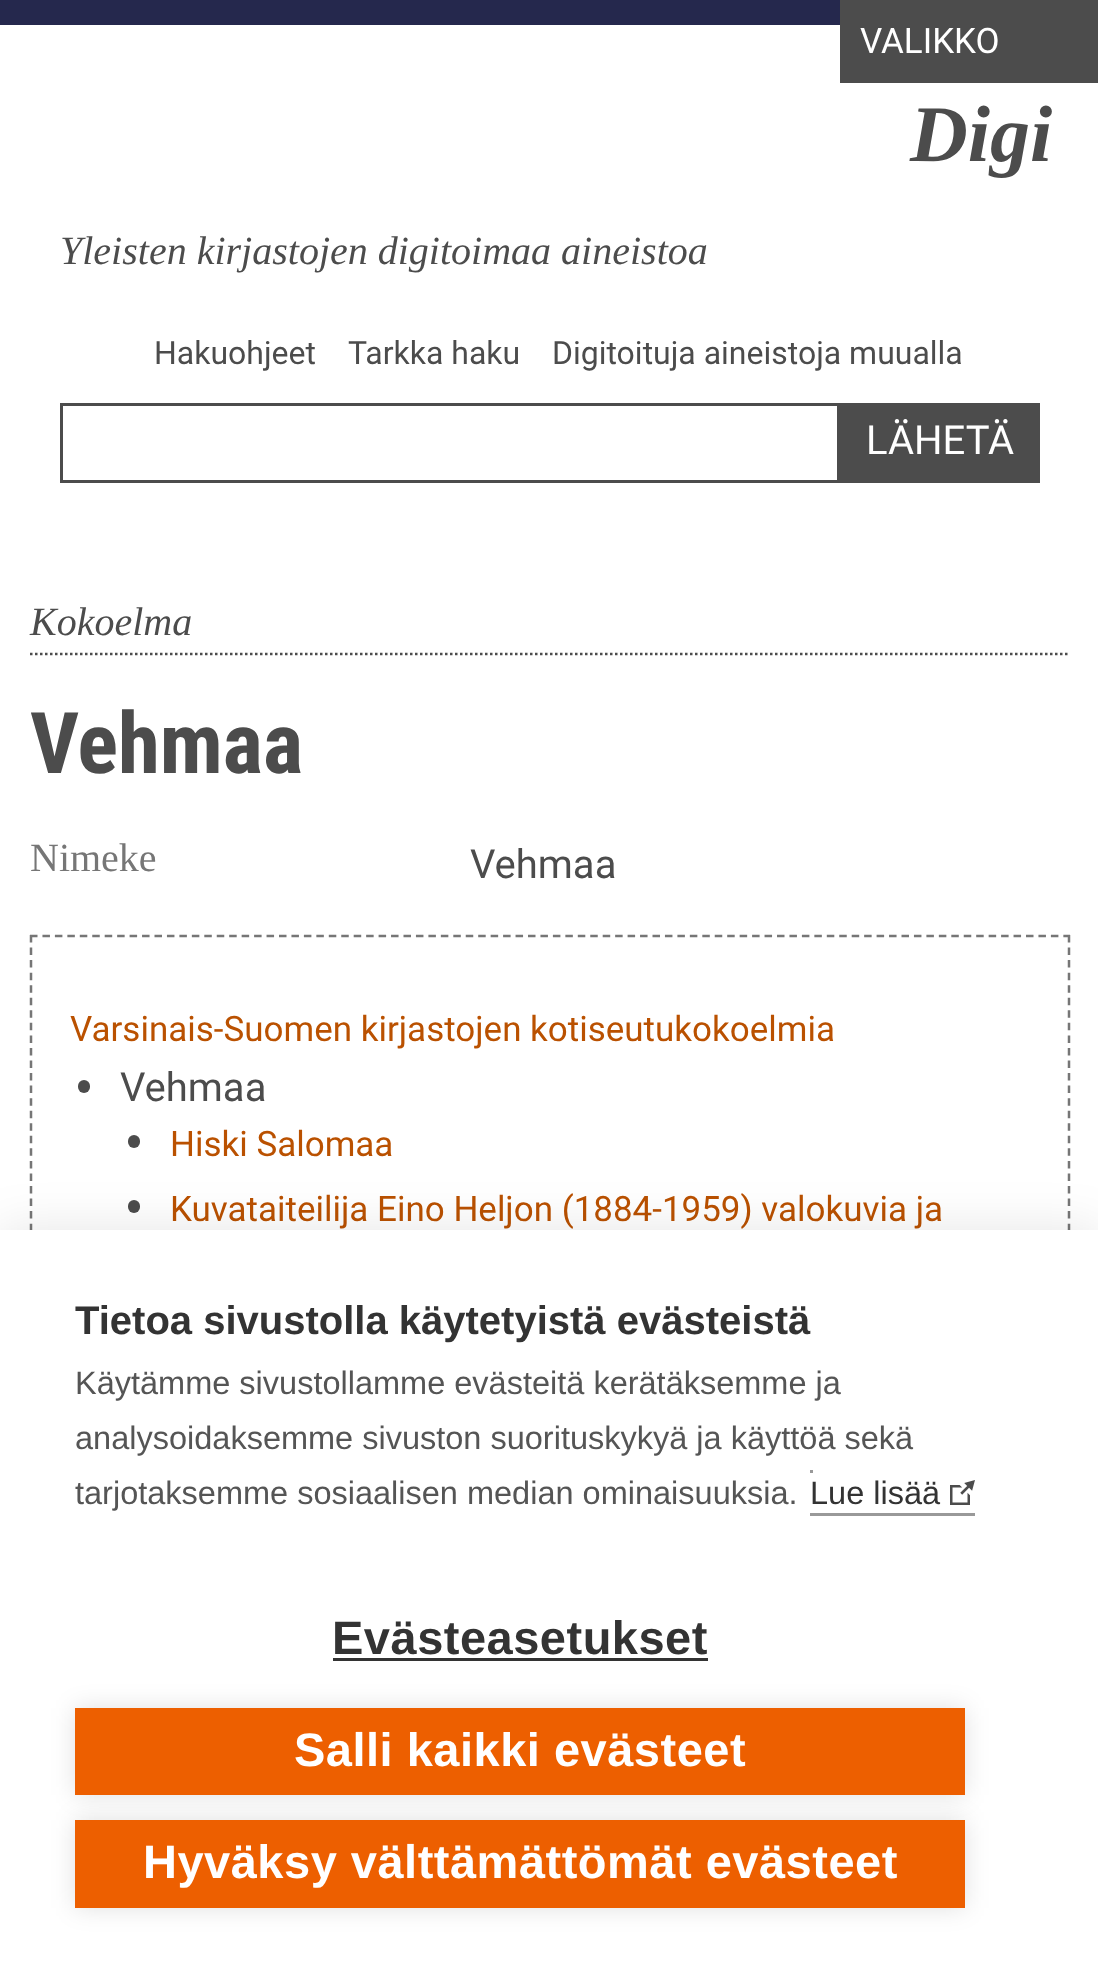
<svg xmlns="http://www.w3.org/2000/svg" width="1098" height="1968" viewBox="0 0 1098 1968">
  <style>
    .t1 { font: 35px Roboto; fill: #fff; }
    .t2 { font: italic bold 80px Liberation Serif; fill: #4c4c4c; }
    .t3 { font: italic 40px Liberation Serif; fill: #4c4c4c; }
    .t4 { font: 32px Roboto; fill: #4c4c4c; }
    .t5 { font: 40px Roboto; fill: #fff; }
    .t6 { font: bold 85px Roboto Condensed; fill: #4c4c4c; }
    .t7 { font: 40px Liberation Serif; fill: #767676; }
    .t8 { font: 40px Roboto; fill: #4c4c4c; }
    .t9 { font: 35px Roboto; fill: #ba5100; }
    .t10 { font: bold 40px Liberation Sans; fill: #333; }
    .t11 { font: 32.5px Liberation Sans; fill: #555; }
    .t12 { font: 32.5px Liberation Sans; fill: #333; }
    .t13 { font: bold 47px Liberation Sans; letter-spacing: 0.5px; fill: #333; }
    .t14 { font: bold 47px Liberation Sans; letter-spacing: 0.5px; fill: #fff; }
  </style>
  <rect width="100%" height="100%" fill="#fff"/>
  <rect x="0" y="0" width="840" height="25" fill="#25284d"/>
  <rect x="840" y="0" width="258" height="83" fill="#4c4c4c"/>
  <text x="860" y="53" class="t1">VALIKKO</text>
  <text x="910" y="161" class="t2">Digi</text>
  <text x="60" y="264" class="t3">Yleisten kirjastojen digitoimaa aineistoa</text>
  <text x="154" y="364" class="t4">Hakuohjeet</text>
  <text x="348" y="364" class="t4">Tarkka haku</text>
  <text x="552" y="364" class="t4">Digitoituja aineistoja muualla</text>
  <rect x="61.5" y="404.5" width="777" height="77" fill="none" stroke="#4c4c4c" stroke-width="3"/>
  <rect x="840" y="403" width="200" height="80" fill="#4c4c4c"/>
  <text x="866" y="454" class="t5">LÄHETÄ</text>
  <path d="M30 654H1070" fill="none" stroke="#4c4c4c" stroke-width="2.5" stroke-dasharray="2.5 2.5"/>
  <text x="30" y="635" class="t3">Kokoelma</text>
  <text x="30" y="773" class="t6">Vehmaa</text>
  <text x="30" y="871" class="t7">Nimeke</text>
  <text x="470" y="878" class="t8">Vehmaa</text>
  <path d="M30 936H1070" fill="none" stroke="#767676" stroke-width="2.5" stroke-dasharray="7.5 4.95"/>
  <path d="M1069 935V1695" fill="none" stroke="#767676" stroke-width="2.5" stroke-dasharray="7.5 5.05"/>
  <path d="M31 935V1695" fill="none" stroke="#767676" stroke-width="2.5" stroke-dasharray="7.5 5.05"/>
  <text x="70" y="1041" class="t9">Varsinais-Suomen kirjastojen kotiseutukokoelmia</text>
  <rect x="78" y="1080" width="12" height="13" rx="6" fill="#4c4c4c"/>
  <text x="120" y="1101" class="t8">Vehmaa</text>
  <rect x="128" y="1135" width="12" height="13" rx="6" fill="#4c4c4c"/>
  <text x="170" y="1156" class="t9">Hiski Salomaa</text>
  <rect x="128" y="1200" width="12" height="13" rx="6" fill="#4c4c4c"/>
  <text x="170" y="1221" class="t9">Kuvataiteilija Eino Heljon (1884-1959) valokuvia ja</text>
  <rect x="0" y="1230" width="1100" height="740" fill="#0000001a" filter="blur(25px)"/>
  <rect x="0" y="1230" width="1098" height="738" fill="#fff"/>
  <text x="75" y="1334" class="t10">Tietoa sivustolla käytetyistä evästeistä</text>
  <text x="75" y="1394" class="t11">Käytämme sivustollamme evästeitä kerätäksemme ja</text>
  <text x="75" y="1449" class="t11">analysoidaksemme sivuston suorituskykyä ja käyttöä sekä</text>
  <text x="75" y="1504" class="t11">tarjotaksemme sosiaalisen median ominaisuuksia.</text>
  <text x="810" y="1504" class="t12">Lue lisää</text>
  <rect x="810" y="1470" width="3" height="3" fill="#999"/>
  <rect x="810" y="1513" width="165" height="3" fill="#999"/>
  <image x="950" y="1480" width="25" height="25" href="images/1.png"/>
  <text x="332" y="1654" class="t13">Evästeasetukset</text>
  <rect x="333" y="1658" width="375" height="3" fill="#333"/>
  <rect x="75" y="1708" width="890" height="87" fill="#0000001f" filter="blur(12.5px)"/>
  <rect x="75" y="1708" width="890" height="87" fill="#ed5f00"/>
  <text x="294" y="1766" class="t14">Salli kaikki evästeet</text>
  <rect x="75" y="1820" width="890" height="88" fill="#0000001f" filter="blur(12.5px)"/>
  <rect x="75" y="1820" width="890" height="88" fill="#ed5f00"/>
  <text x="143" y="1878" class="t14">Hyväksy välttämättömät evästeet</text>
</svg>
